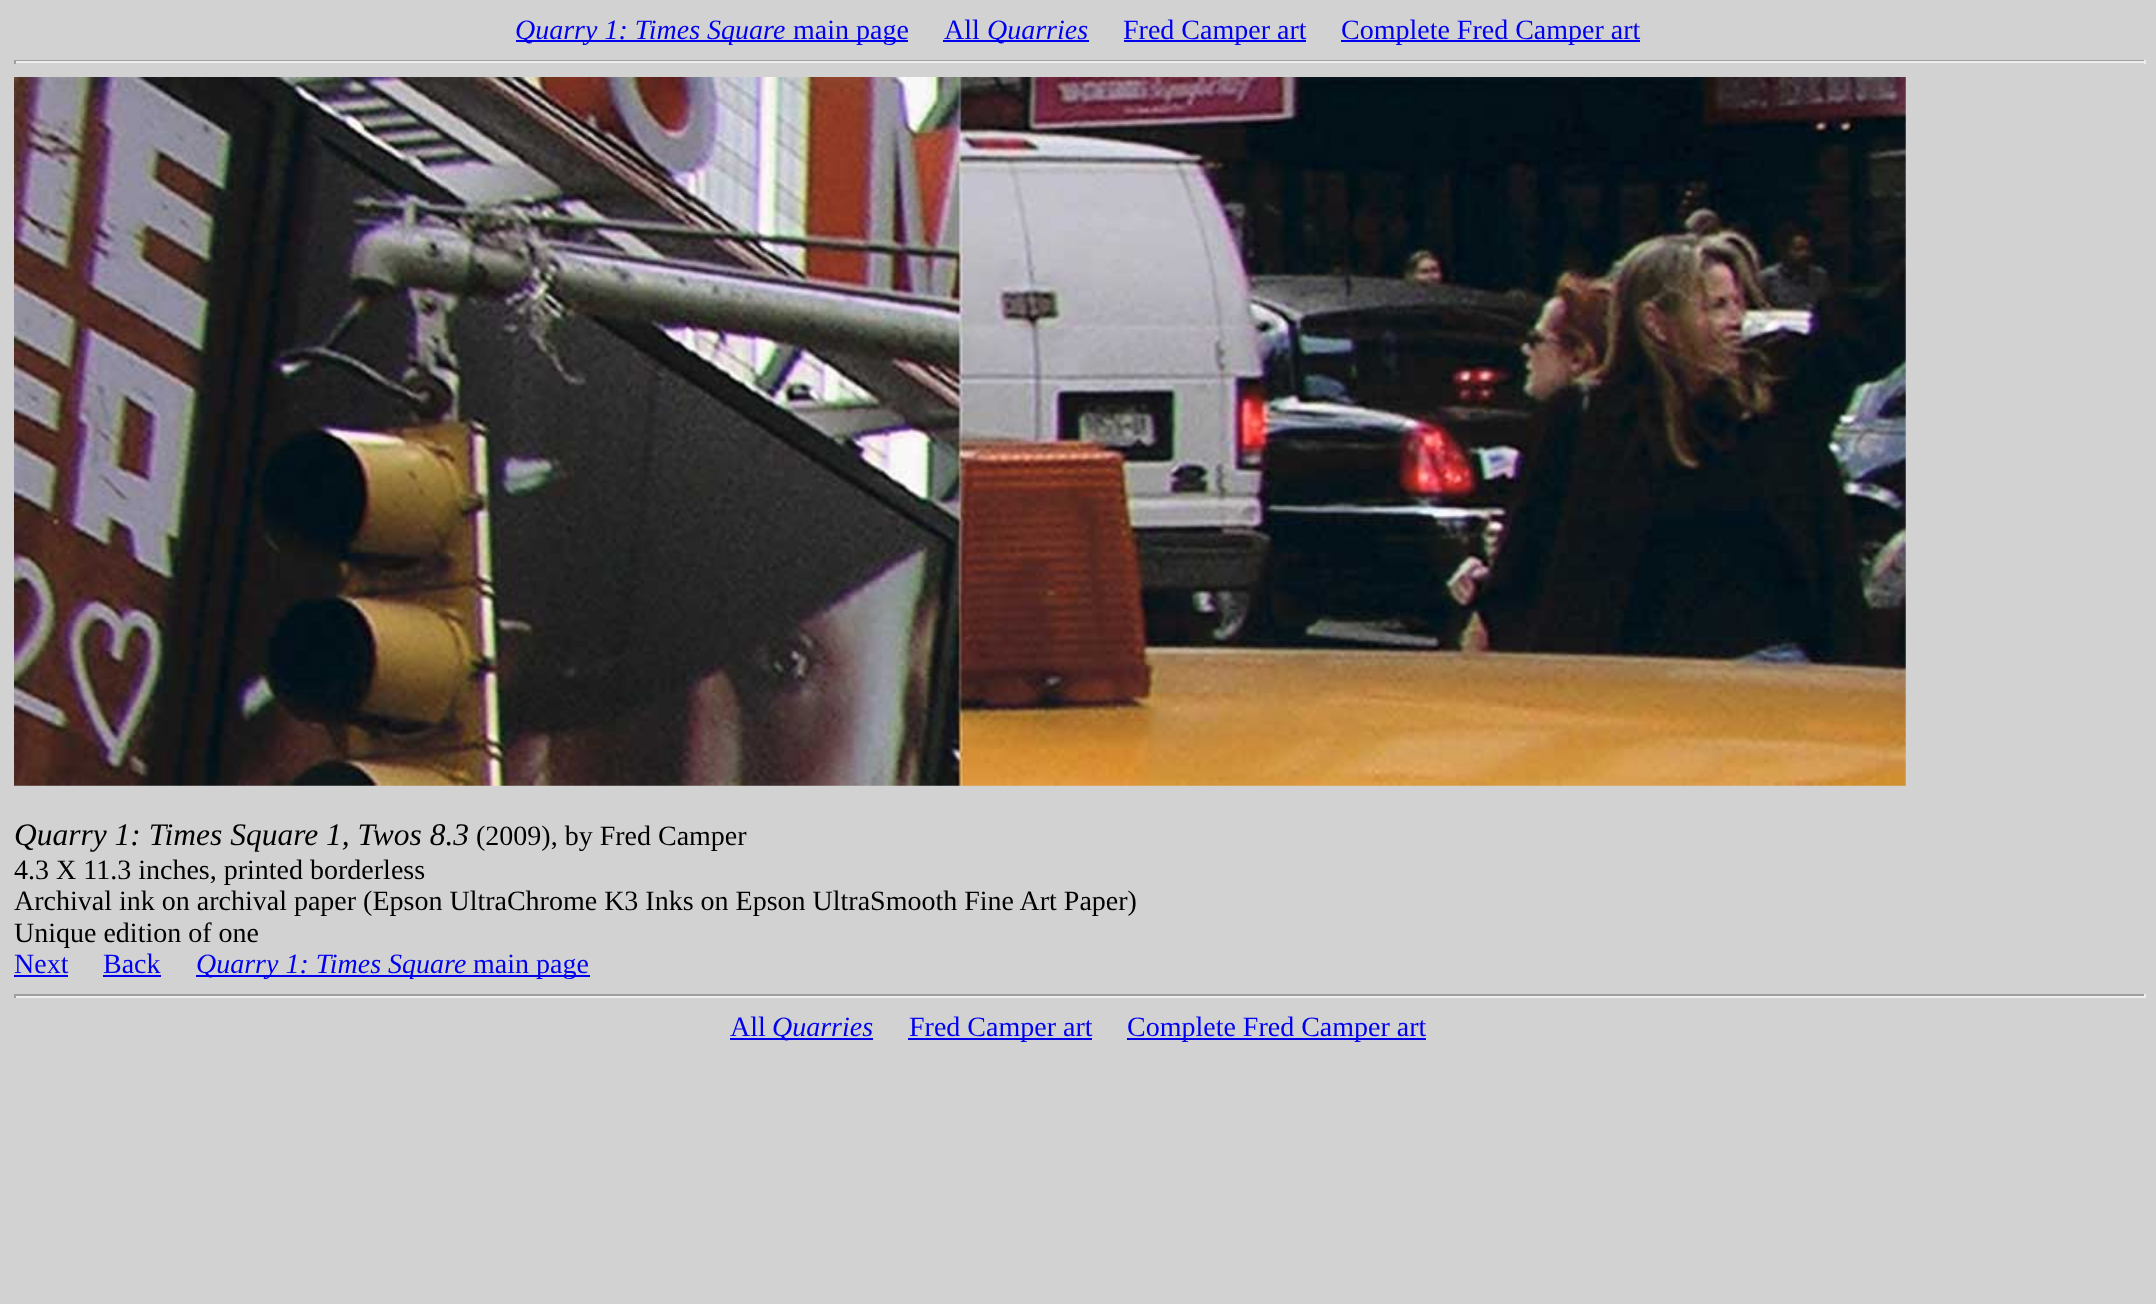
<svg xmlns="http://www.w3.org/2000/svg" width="2156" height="1304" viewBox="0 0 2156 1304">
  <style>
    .t1 { font: italic 28px Liberation Serif; fill: #00e; }
    .t2 { font: 28px Liberation Serif; fill: #00e; }
    .t3 { font: italic 31.5px Liberation Serif; fill: #000; }
    .t4 { font: 28px Liberation Serif; fill: #000; }
  </style>
  <rect width="100%" height="100%" fill="#d2d2d2"/>
  <rect x="516" y="40" width="392" height="2" fill="#00e"/>
  <text x="515" y="39" class="t1">Quarry 1: Times Square</text>
  <text x="793" y="39" class="t2">main page</text>
  <text x="944" y="39" class="t2">All</text>
  <rect x="943" y="40" width="146" height="2" fill="#00e"/>
  <text x="987" y="39" class="t1">Quarries</text>
  <rect x="1124" y="40" width="182" height="2" fill="#00e"/>
  <text x="1123" y="39" class="t2">Fred Camper art</text>
  <rect x="1341" y="40" width="299" height="2" fill="#00e"/>
  <text x="1341" y="39" class="t2">Complete Fred Camper art</text>
  <rect x="14" y="60" width="2132" height="1" fill="#9f9f9f"/>
  <rect x="2144" y="60" width="2" height="4" fill="#eee"/>
  <rect x="14" y="61" width="2132" height="2" fill="#eee"/>
  <rect x="14" y="60" width="2" height="4" fill="#9f9f9f"/>
  <image x="14" y="77" width="1892" height="709" href="images/1.png"/>
  <text x="14" y="845" class="t3">Quarry 1: Times Square 1, Twos 8.3</text>
  <text x="476" y="845" class="t4">(2009), by Fred Camper</text>
  <text x="14" y="879" class="t4">4.3 X 11.3 inches, printed borderless</text>
  <text x="14" y="910" class="t4">Archival ink on archival paper (Epson UltraChrome K3 Inks on Epson UltraSmooth Fine Art Paper)</text>
  <text x="14" y="942" class="t4">Unique edition of one</text>
  <text x="14" y="973" class="t2">Next</text>
  <rect x="14" y="975" width="54" height="2" fill="#00e"/>
  <text x="103" y="973" class="t2">Back</text>
  <rect x="103" y="975" width="58" height="2" fill="#00e"/>
  <rect x="196" y="975" width="394" height="2" fill="#00e"/>
  <text x="196" y="973" class="t1">Quarry 1: Times Square</text>
  <text x="473" y="973" class="t2">main page</text>
  <rect x="14" y="994" width="2132" height="2" fill="#9f9f9f"/>
  <rect x="2144" y="994" width="2" height="4" fill="#eee"/>
  <rect x="14" y="996" width="2132" height="2" fill="#eee"/>
  <rect x="14" y="994" width="2" height="4" fill="#9f9f9f"/>
  <text x="730" y="1036" class="t2">All</text>
  <rect x="730" y="1038" width="143" height="2" fill="#00e"/>
  <text x="772" y="1036" class="t1">Quarries</text>
  <rect x="908" y="1038" width="184" height="2" fill="#00e"/>
  <text x="909" y="1036" class="t2">Fred Camper art</text>
  <rect x="1127" y="1038" width="299" height="2" fill="#00e"/>
  <text x="1127" y="1036" class="t2">Complete Fred Camper art</text>
</svg>
